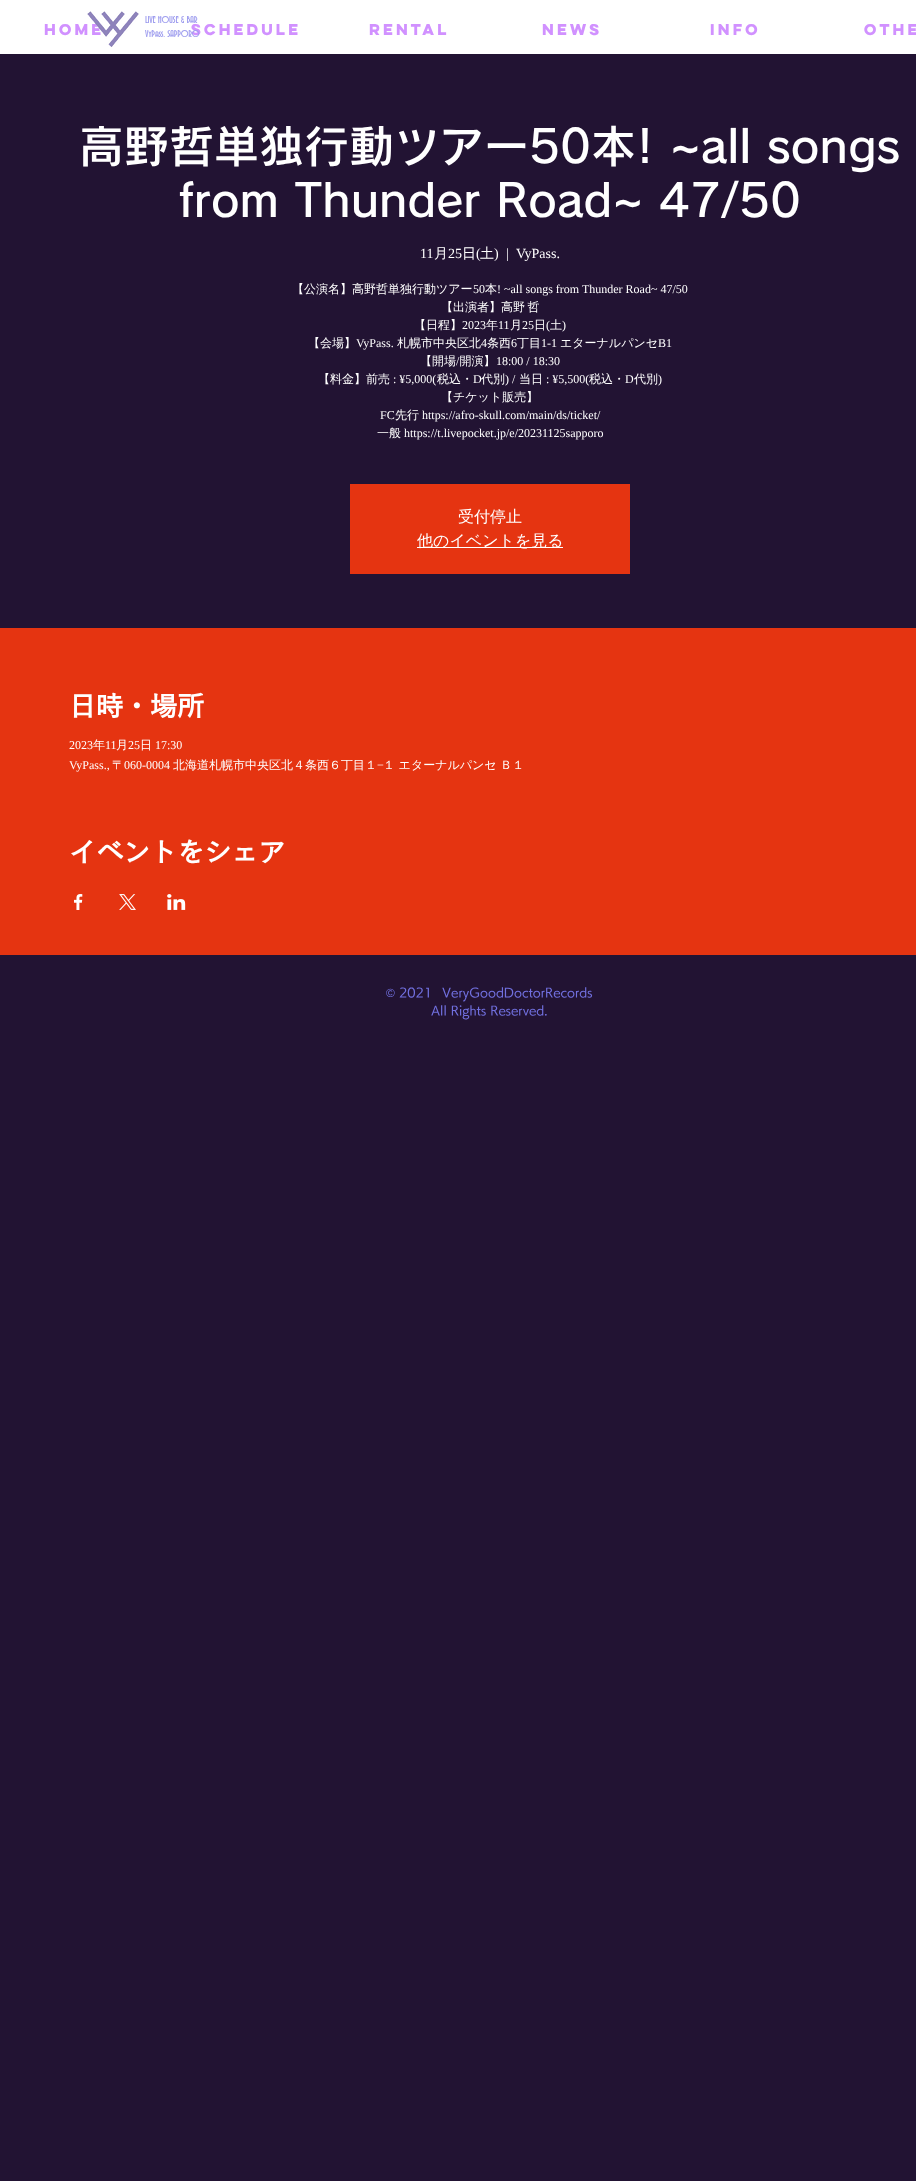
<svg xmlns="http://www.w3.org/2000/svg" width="916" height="2181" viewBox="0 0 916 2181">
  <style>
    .t1 { font: bold 14px 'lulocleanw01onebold'; fill: #d191ff; }
    .t2 { font: bold 10px 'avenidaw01'; fill: #a09fef; }
    .t3 { font: 600 45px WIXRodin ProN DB; fill: #fff; }
    .t4 { font: 14px Liberation Serif; fill: #fff; }
    .t5 { font: 500 14px WenQuanYi Zen Hei; fill: #fff; }
    .t6 { font: 500 12px WenQuanYi Zen Hei; fill: #fff; }
    .t7 { font: 12px Liberation Serif; fill: #fff; }
    .t8 { font: 500 16px WenQuanYi Zen Hei; fill: #fff; }
    .t9 { font: bold 27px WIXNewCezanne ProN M; fill: #fff; }
    .t10 { font: 12px Liberation Sans; fill: #7170df; }
    .t11 { font: 500 12px 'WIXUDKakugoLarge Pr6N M'; fill: #7170df; }
  </style>
  <rect width="100%" height="100%" fill="#221333"/>
  <rect x="0" y="0" width="916" height="54" fill="#fff"/>
  <text x="44" y="35" class="t1">HOME</text>
  <image x="87" y="11" width="52" height="36" href="images/1.png"/>
  <text x="145" y="23" class="t2">LIVE HOUSE &amp; BAR</text>
  <text x="191" y="35" class="t1">SCHEDULE</text>
  <text x="145" y="37" class="t2">VyPass. SAPPORO</text>
  <text x="369" y="35" class="t1">RENTAL</text>
  <text x="542" y="35" class="t1">NEWS</text>
  <text x="710" y="35" class="t1">INFO</text>
  <text x="864" y="35" class="t1">OTHE</text>
  <text x="79" y="163" class="t3">高野哲単独行動ツアー50本! ~all songs</text>
  <text x="179" y="217" class="t3">from Thunder Road~ 47/50</text>
  <text x="420" y="258" class="t4">11</text>
  <text x="434" y="258" class="t5">月</text>
  <text x="448" y="258" class="t4">25</text>
  <text x="462" y="258" class="t5">日</text>
  <text x="476" y="258" class="t4">(</text>
  <text x="480" y="258" class="t5">土</text>
  <text x="494" y="258" class="t4">)</text>
  <text x="506" y="258" class="t4">|</text>
  <text x="516" y="258" class="t4">VyPass.</text>
  <text x="292" y="293" class="t6">【公演名】高野哲単独行動ツアー</text>
  <text x="473" y="293" class="t7">50</text>
  <text x="485" y="293" class="t6">本</text>
  <text x="497" y="293" class="t7">! ~all songs from Thunder Road~ 47/50</text>
  <text x="441" y="311" word-spacing="-1" class="t6">【出演者】高野 哲</text>
  <text x="414" y="329" class="t6">【日程】</text>
  <text x="462" y="329" class="t7">2023</text>
  <text x="486" y="329" class="t6">年</text>
  <text x="498" y="329" class="t7">11</text>
  <text x="510" y="329" class="t6">月</text>
  <text x="522" y="329" class="t7">25</text>
  <text x="534" y="329" class="t6">日</text>
  <text x="546" y="329" class="t7">(</text>
  <text x="550" y="329" class="t6">土</text>
  <text x="562" y="329" class="t7">)</text>
  <text x="308" y="347" class="t6">【会場】</text>
  <text x="356" y="347" class="t7">VyPass.</text>
  <text x="397" y="347" class="t6">札幌市中央区北</text>
  <text x="481" y="347" class="t7">4</text>
  <text x="487" y="347" class="t6">条西</text>
  <text x="511" y="347" class="t7">6</text>
  <text x="517" y="347" class="t6">丁目</text>
  <text x="541" y="347" class="t7">1-1</text>
  <text x="560" y="347" class="t6">エターナルパンセ</text>
  <text x="658" y="347" class="t7">B1</text>
  <text x="420" y="365" class="t6">【開場 開演】</text>
  <text x="456" y="365" class="t7">/</text>
  <text x="496" y="365" class="t7">18:00 / 18:30</text>
  <text x="318" y="383" class="t6">【料金】前売</text>
  <text x="393" y="383" class="t7">: ¥5,000(</text>
  <text x="437" y="383" class="t6">税込・</text>
  <text x="473" y="383" class="t7">D</text>
  <text x="481" y="383" class="t6">代別</text>
  <text x="505" y="383" class="t7">) /</text>
  <text x="519" y="383" class="t6">当日</text>
  <text x="546" y="383" class="t7">: ¥5,500(</text>
  <text x="589" y="383" class="t6">税込・</text>
  <text x="625" y="383" class="t7">D</text>
  <text x="634" y="383" class="t6">代別</text>
  <text x="658" y="383" class="t7">)</text>
  <text x="441" y="401" class="t6">【チケット販売】</text>
  <text x="380" y="419" class="t7">FC</text>
  <text x="395" y="419" class="t6">先行</text>
  <text x="422" y="419" class="t7">https://afro-skull.com/main/ds/ticket/</text>
  <text x="377" y="437" class="t6">一般</text>
  <text x="404" y="437" class="t7">https://t.livepocket.jp/e/20231125sapporo</text>
  <rect x="350" y="484" width="280" height="90" fill="#e53411"/>
  <text x="458" y="522" class="t8">受付停止</text>
  <rect x="417" y="547" width="146" height="1" fill="#fff"/>
  <text x="417" y="546" class="t8">他のイベントを見る</text>
  <rect x="0" y="628" width="916" height="327" fill="#e53411"/>
  <text x="69" y="716" class="t9">日時・場所</text>
  <text x="69" y="749" class="t7">2023</text>
  <text x="93" y="749" class="t6">年</text>
  <text x="105" y="749" class="t7">11</text>
  <text x="116" y="749" class="t6">月</text>
  <text x="128" y="749" class="t7">25</text>
  <text x="140" y="749" class="t6">日</text>
  <text x="155" y="749" class="t7">17:30</text>
  <text x="69" y="769" class="t7">VyPass.,</text>
  <text x="112" y="769" class="t6">〒</text>
  <text x="124" y="769" class="t7">060-0004</text>
  <text x="173" y="769" class="t6">北海道札幌市中央区北４条西６丁目１</text>
  <text x="377" y="769" class="t7">−</text>
  <text x="383" y="769" class="t6">１ エターナルパンセ Ｂ１</text>
  <text x="69" y="862" class="t9">イベントをシェア</text>
  <image x="74" y="894" width="9" height="16" href="images/2.png"/>
  <image x="119" y="894" width="17" height="16" href="images/3.png"/>
  <image x="167" y="894" width="19" height="16" href="images/4.png"/>
  <text x="386" y="997" class="t10">©</text>
  <text x="399" y="997" class="t11">2021</text>
  <text x="442" y="997" class="t11">VeryGoodDoctorRecords</text>
  <text x="431" y="1015" class="t11">All Rights Reserved.</text>
</svg>
